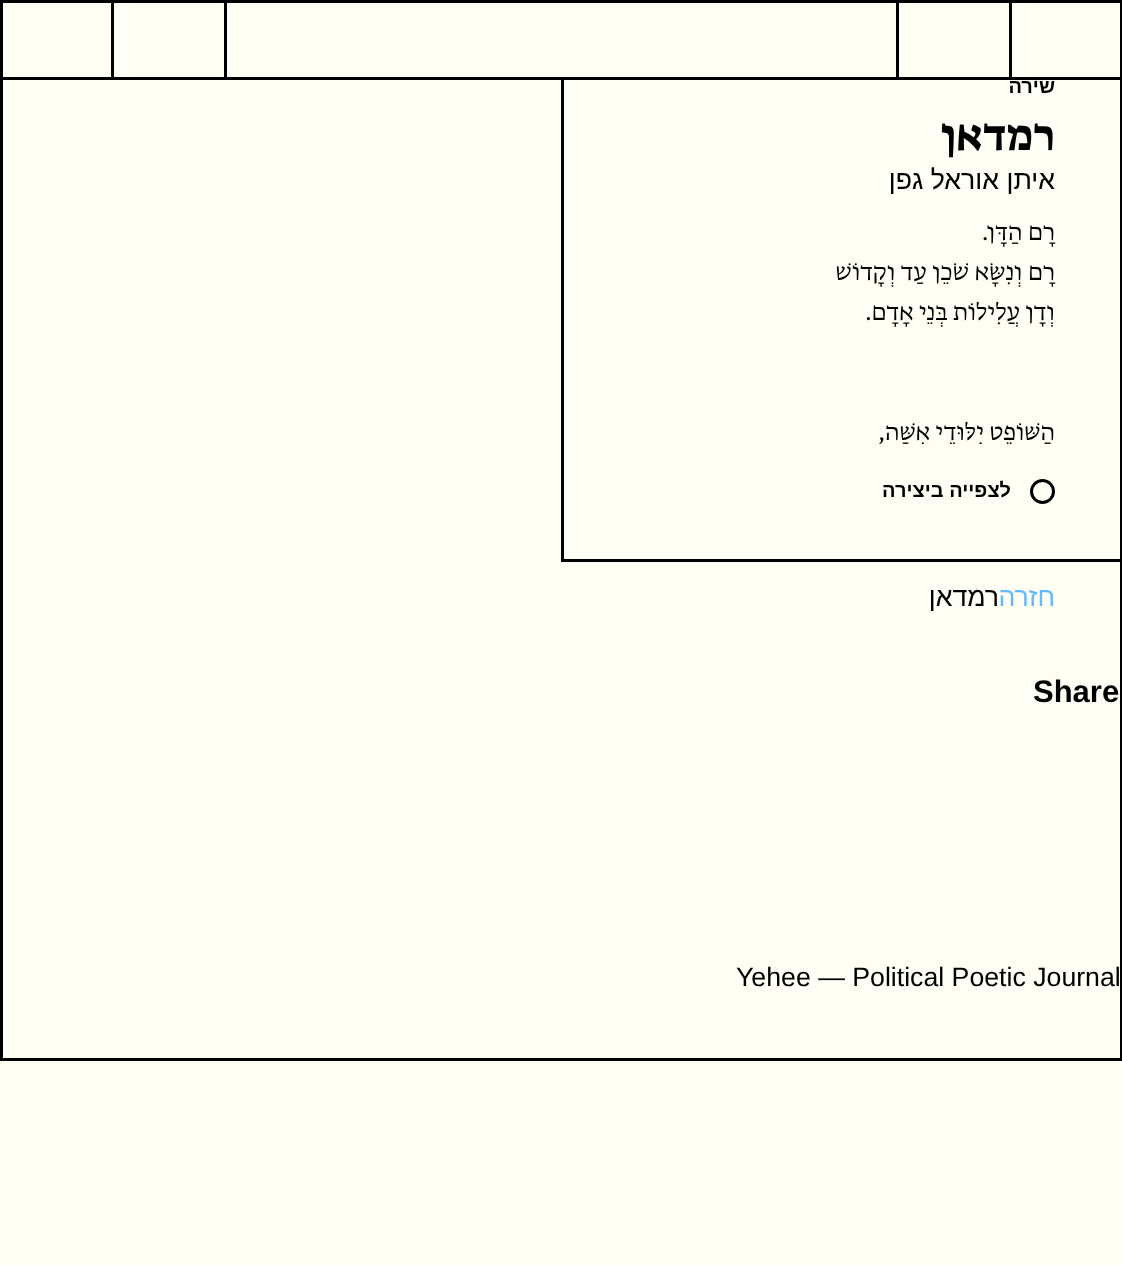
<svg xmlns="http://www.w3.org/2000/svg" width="1122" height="1265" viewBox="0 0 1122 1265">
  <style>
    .t1 { font: bold 20px Liberation Sans; direction: rtl; fill: #000; }
    .t2 { font: bold 47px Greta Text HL; direction: rtl; fill: #000; }
    .t3 { font: 26.7px Liberation Sans; direction: rtl; fill: #000; }
    .t4 { font: 300 26.7px Greta Text HL; direction: rtl; fill: #000; }
    .t5 { font: 26.7px Liberation Sans; direction: rtl; fill: #62b9fb; }
    .t6 { font: bold 31px Liberation Sans; fill: #000; }
    .t7 { font: 26.7px Liberation Sans; fill: #000; }
  </style>
  <defs>
    <clipPath id="clip1"><rect x="629" y="214" width="426" height="230"/></clipPath>
  </defs>
  <rect width="100%" height="100%" fill="#fffef4"/>
  <rect x="1.5" y="1.5" width="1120" height="1058" fill="none" stroke="#000" stroke-width="3"/>
  <rect x="1.5" y="1.5" width="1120" height="77" fill="none" stroke="#000" stroke-width="3"/>
  <rect x="1009" y="3" width="3" height="75" fill="#000"/>
  <rect x="896" y="3" width="3" height="75" fill="#000"/>
  <rect x="224" y="3" width="3" height="75" fill="#000"/>
  <rect x="111" y="3" width="3" height="75" fill="#000"/>
  <rect x="561" y="559" width="559" height="3" fill="#000"/>
  <rect x="561" y="80" width="3" height="481" fill="#000"/>
  <text x="1055" y="93" class="t1">שירה</text>
  <text x="1055" y="150" class="t2">רמדאן</text>
  <text x="1055" y="189" class="t3">איתן אוראל גפן</text>
  <text x="1055" y="240" class="t4">רָם הַדָּן.</text>
  <text x="1055" y="280" class="t4">רָם וְנִשָּׂא שֹׁכֵן עַד וְקָדוֹשׁ</text>
  <text x="1055" y="320" class="t4">וְדָן עֲלִילוֹת בְּנֵי אָדָם.</text>
  <g clip-path="url(#clip1)">
    <text x="1055" y="440" class="t4">הַשּׁוֹפֵט יִלּוּדֵי אִשָּׁה,</text>
  </g>
  <circle cx="1042.5" cy="491.5" r="11" fill="none" stroke="#000" stroke-width="3"/>
  <text x="1011" y="497" class="t1">לצפייה ביצירה</text>
  <text x="1055" y="606" class="t5">חזרה</text>
  <text x="999" y="606" class="t3">רמדאן</text>
  <text x="1033" y="702" class="t6">Share</text>
  <text x="736" y="986" class="t7">Yehee — Political Poetic Journal</text>
</svg>
